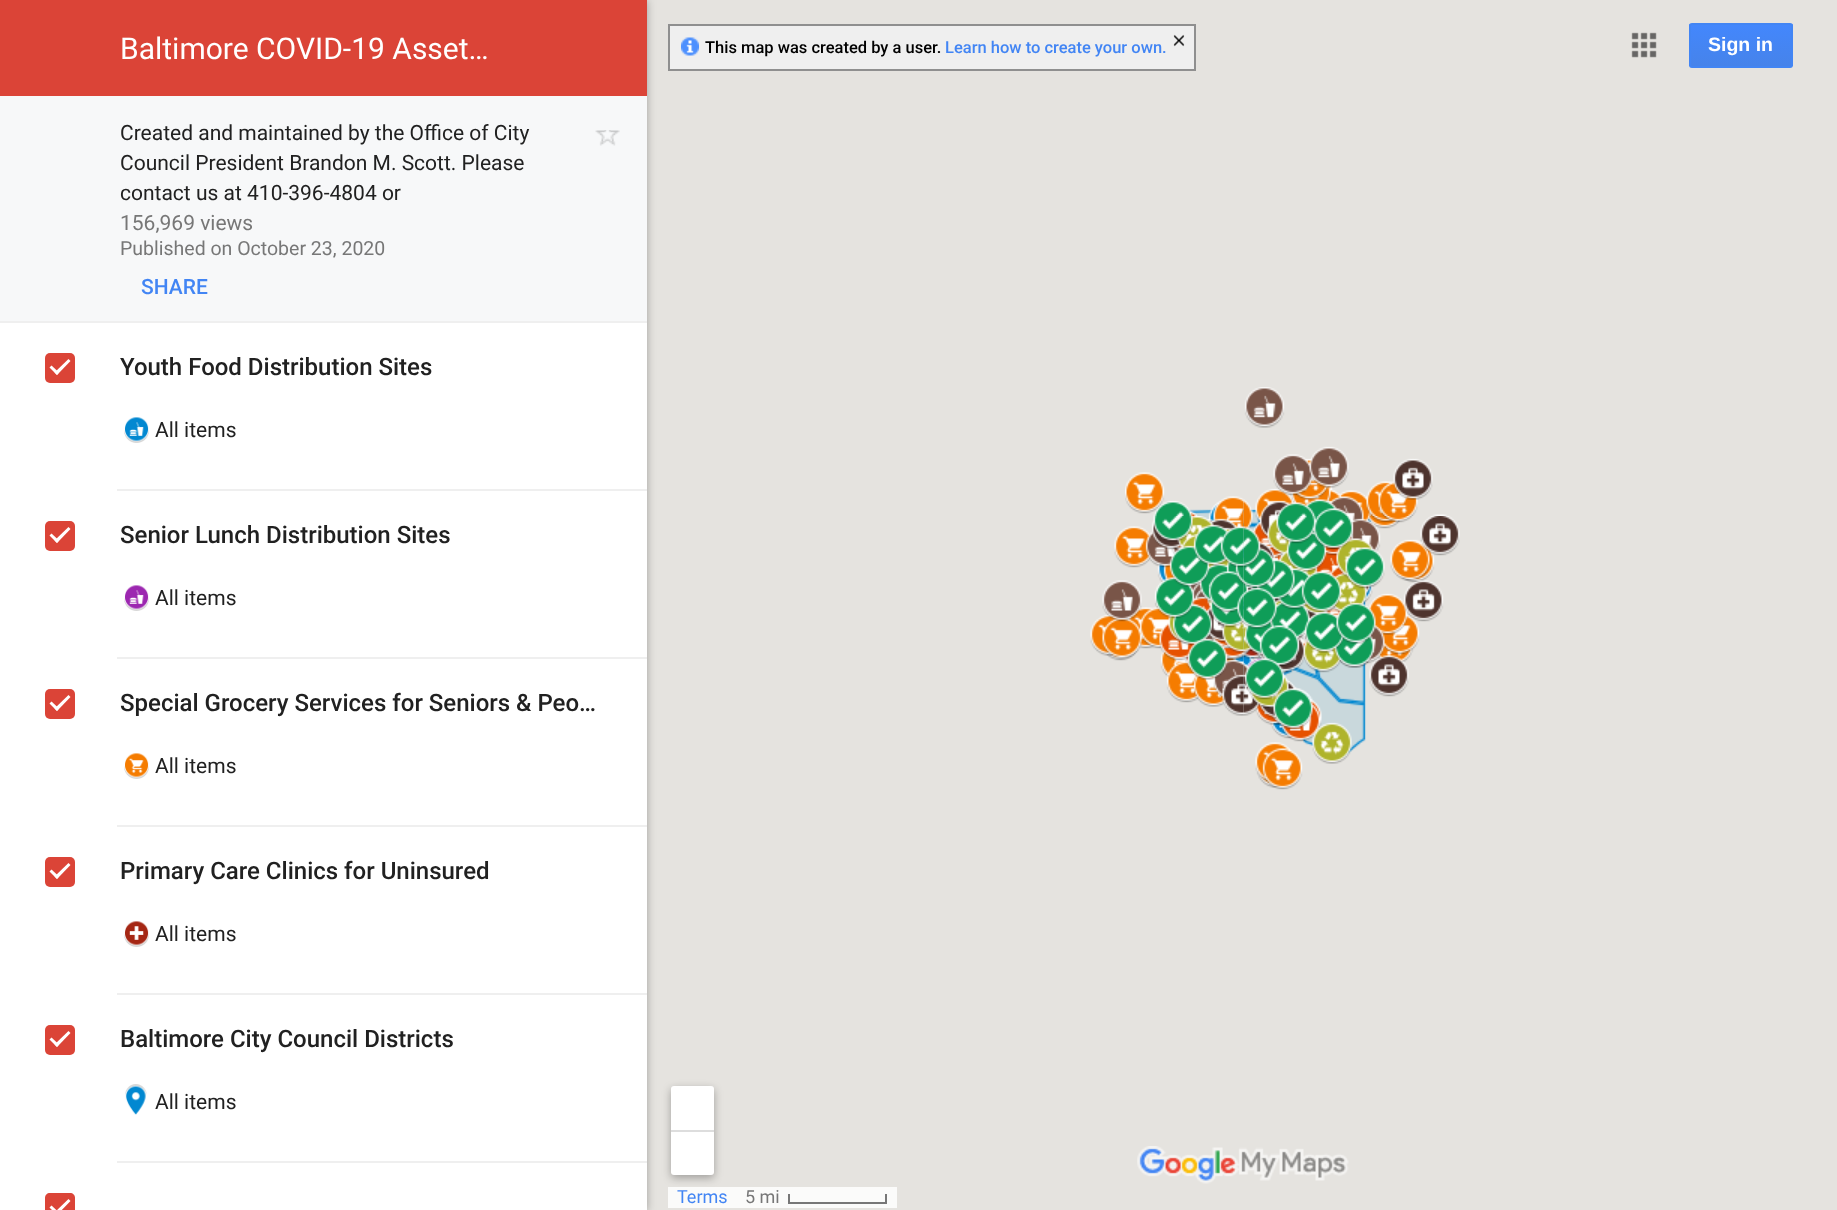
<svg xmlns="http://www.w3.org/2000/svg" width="1837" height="1210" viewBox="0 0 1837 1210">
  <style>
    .t1 { font: 30px Roboto; fill: #fff; }
    .t2 { font: 21px Roboto; fill: #212121; }
    .t3 { font: 21px Roboto; fill: #777; }
    .t4 { font: 19.5px Roboto; fill: #777; }
    .t5 { font: 500 21px Roboto; fill: #4285f4; }
    .t6 { font: 500 24px Roboto; fill: #212121; }
    .t7 { font: 500 16.5px Roboto; fill: #000; }
    .t8 { font: 500 16.5px Roboto; fill: #4285f4; }
    .t9 { font: bold 19.5px Liberation Sans; fill: #fff; }
    .t10 { font: 18px Roboto; fill: #4285f4; }
    .t11 { font: 18px Roboto; fill: #777; }
  </style>
  <defs>
    <clipPath id="clip1"><rect x="1689" y="23" width="104" height="45" rx="3"/></clipPath>
    <linearGradient id="g1" gradientUnits="userSpaceOnUse" x1="1741" y1="24" x2="1741" y2="66"><stop offset="0" stop-color="#4387fd"/><stop offset="1" stop-color="#4683ea"/></linearGradient>
  </defs>
  <rect width="100%" height="100%" fill="#e5e3df"/>
  <rect x="0" y="0" width="647" height="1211" fill="#0000004d" filter="blur(4.5px)"/>
  <rect x="0" y="323" width="647" height="887" fill="#fff"/>
  <rect x="0" y="0" width="647" height="96" fill="#db4437"/>
  <text x="120" y="59" class="t1">Baltimore COVID-19 Asset…</text>
  <rect x="0" y="96" width="647" height="225" fill="#f7f8f9"/>
  <rect x="0" y="321" width="647" height="2" fill="#efefef"/>
  <text x="120" y="140" class="t2">Created and maintained by the Office of City</text>
  <text x="120" y="170" class="t2">Council President Brandon M. Scott. Please</text>
  <text x="120" y="200" class="t2">contact us at 410-396-4804 or</text>
  <image x="595" y="130" width="25" height="16" href="images/1.png"/>
  <text x="120" y="230" class="t3">156,969 views</text>
  <text x="120" y="255" class="t4">Published on October 23, 2020</text>
  <text x="141" y="294" class="t5">SHARE</text>
  <rect x="45" y="353" width="30" height="30" rx="5" fill="#db4437"/>
  <path d="M49.5 367.5L51.5 365.5L59 372.5L57 375Z" fill="#fff"/>
  <path d="M54.5 372.5L68.5 359L70.5 361L57 375Z" fill="#fff"/>
  <text x="120" y="375" class="t6">Youth Food Distribution Sites</text>
  <image x="124" y="417" width="25" height="26" href="images/2.png"/>
  <text x="155" y="437" class="t2">All items</text>
  <rect x="117" y="489" width="530" height="2" fill="#efefef"/>
  <rect x="45" y="521" width="30" height="30" rx="5" fill="#db4437"/>
  <path d="M49.5 535.5L51.5 533.5L59 540.5L57 543Z" fill="#fff"/>
  <path d="M54.5 540.5L68.5 527L70.5 529L57 543Z" fill="#fff"/>
  <text x="120" y="543" class="t6">Senior Lunch Distribution Sites</text>
  <image x="124" y="585" width="25" height="26" href="images/3.png"/>
  <text x="155" y="605" class="t2">All items</text>
  <rect x="117" y="657" width="530" height="2" fill="#efefef"/>
  <rect x="45" y="689" width="30" height="30" rx="5" fill="#db4437"/>
  <path d="M49.5 703.5L51.5 701.5L59 708.5L57 711Z" fill="#fff"/>
  <path d="M54.5 708.5L68.5 695L70.5 697L57 711Z" fill="#fff"/>
  <text x="120" y="711" class="t6">Special Grocery Services for Seniors &amp; Peo…</text>
  <image x="124" y="753" width="25" height="26" href="images/4.png"/>
  <text x="155" y="773" class="t2">All items</text>
  <rect x="117" y="825" width="530" height="2" fill="#efefef"/>
  <rect x="45" y="857" width="30" height="30" rx="5" fill="#db4437"/>
  <path d="M49.5 871.5L51.5 869.5L59 876.5L57 879Z" fill="#fff"/>
  <path d="M54.5 876.5L68.5 863L70.5 865L57 879Z" fill="#fff"/>
  <text x="120" y="879" class="t6">Primary Care Clinics for Uninsured</text>
  <image x="124" y="921" width="25" height="26" href="images/5.png"/>
  <text x="155" y="941" class="t2">All items</text>
  <rect x="117" y="993" width="530" height="2" fill="#efefef"/>
  <rect x="45" y="1025" width="30" height="30" rx="5" fill="#db4437"/>
  <path d="M49.5 1039.5L51.5 1037.5L59 1044.5L57 1047Z" fill="#fff"/>
  <path d="M54.5 1044.5L68.5 1031L70.5 1033L57 1047Z" fill="#fff"/>
  <text x="120" y="1047" class="t6">Baltimore City Council Districts</text>
  <image x="125" y="1084" width="22" height="31" href="images/6.png"/>
  <text x="155" y="1109" class="t2">All items</text>
  <rect x="117" y="1161" width="530" height="2" fill="#efefef"/>
  <path d="M50 1193H70C73 1193 75 1195 75 1198V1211H45V1198C45 1195 47 1193 50 1193Z" fill="#db4437"/>
  <path d="M49.5 1207.5L51.5 1205.5L59 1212.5L57 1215ZM54.5 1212.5L68.5 1199L70.5 1201L57 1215Z" fill="#fff"/>
  <rect x="669" y="25" width="526" height="45" fill="#efefef" stroke="#8f8f8f" stroke-width="2"/>
  <image x="681" y="37" width="18" height="19" href="images/7.png"/>
  <text x="705" y="53" class="t7">This map was created by a user.</text>
  <text x="945" y="53" class="t8">Learn how to create your own.</text>
  <image x="1173" y="34" width="12" height="13" href="images/8.png"/>
  <image x="1631" y="32" width="26" height="26" href="images/9.png"/>
  <g clip-path="url(#clip1)">
    <rect x="1689" y="24" width="104" height="42" fill="url(#g1)"/>
  </g>
  <rect x="1690" y="24" width="102" height="43" rx="2" fill="none" stroke="#4285f4" stroke-width="2"/>
  <text x="1708" y="51" class="t9">Sign in</text>
  <image x="1187" y="509" width="57" height="7" href="images/14.png"/>
  <image x="1243" y="509" width="15" height="7" href="images/15.png"/>
  <image x="1125" y="472" width="119" height="44" href="images/10.png"/>
  <image x="1243" y="387" width="204" height="129" href="images/11.png"/>
  <image x="1243" y="516" width="123" height="242" href="images/17.png"/>
  <image x="1198" y="516" width="46" height="172" href="images/16.png"/>
  <image x="1243" y="516" width="217" height="274" href="images/13.png"/>
  <image x="1090" y="516" width="154" height="200" href="images/12.png"/>
  <rect x="671" y="1089" width="43" height="89" rx="3" fill="#0000004d" filter="blur(4.5px)"/>
  <rect x="671" y="1086" width="43" height="89" rx="3" fill="#fff"/>
  <rect x="671" y="1130" width="43" height="2" fill="#ddd"/>
  <image x="1137" y="1146" width="212" height="38" href="images/18.png"/>
  <rect x="668" y="1187" width="229" height="21" fill="#fbfbfa"/>
  <text x="677" y="1203" class="t10">Terms</text>
  <text x="745" y="1203" class="t11">5 mi</text>
  <rect x="788" y="1202" width="99" height="2" fill="#777"/>
  <rect x="788" y="1194" width="2" height="9" fill="#777"/>
  <rect x="885" y="1194" width="2" height="9" fill="#777"/>
</svg>
